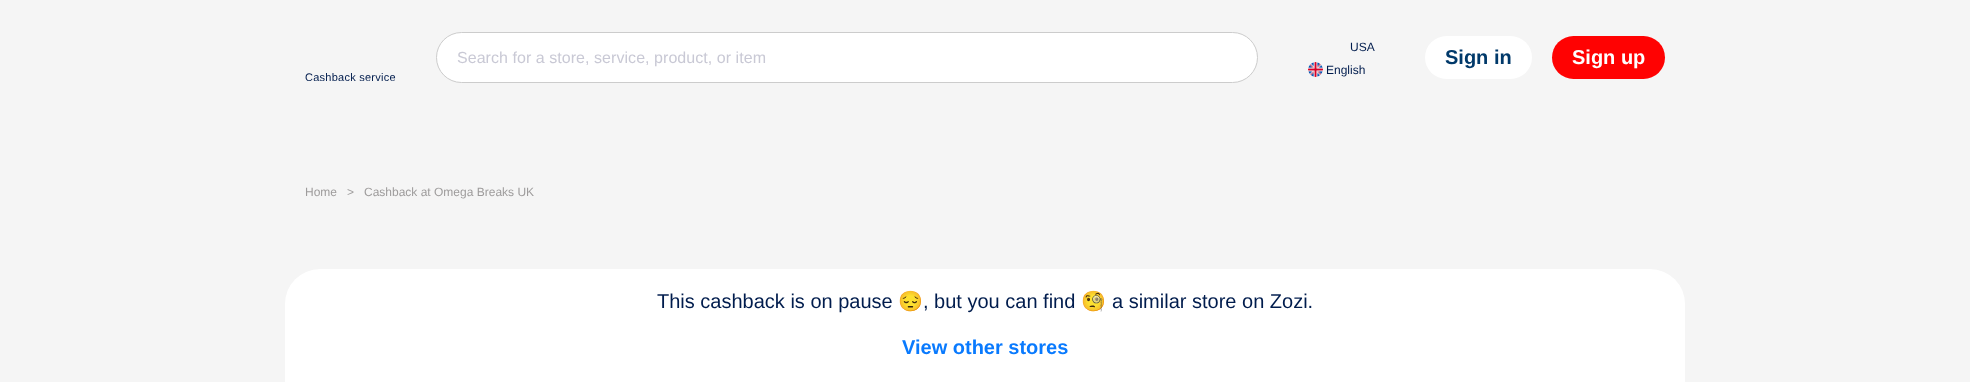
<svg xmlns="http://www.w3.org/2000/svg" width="1970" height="382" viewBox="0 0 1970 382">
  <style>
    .t1 { font: 16px Liberation Sans; letter-spacing: 0.05px; fill: #c9c9d5; }
    .t2 { font: 12px Liberation Sans; fill: #001c4d; }
    .t3 { font: bold 20px Liberation Sans; fill: #00396a; }
    .t4 { font: bold 20px Liberation Sans; fill: #fff; }
    .t5 { font: 11px Liberation Sans; letter-spacing: 0.25px; fill: #001c4d; }
    .t6 { font: 12px Liberation Sans; fill: #9e9c9c; }
    .t7 { font: 20px Liberation Sans; fill: #001c4d; }
    .t8 { font: 20px Noto Color Emoji; fill: #001c4d; }
    .t9 { font: bold 20px Liberation Sans; fill: #097afe; }
  </style>
  <rect width="100%" height="100%" fill="#f5f5f5"/>
  <rect x="436.5" y="32.5" width="821" height="50" rx="25" fill="#fff" stroke="#ccc"/>
  <text x="457" y="63" class="t1">Search for a store, service, product, or item</text>
  <text x="1350" y="51" class="t2">USA</text>
  <image x="1308" y="62" width="15" height="15" href="images/1.png"/>
  <text x="1326" y="74" class="t2">English</text>
  <rect x="1425" y="36" width="107" height="43" rx="21.5" fill="#fff"/>
  <text x="1445" y="64" class="t3">Sign in</text>
  <rect x="1552" y="36" width="113" height="43" rx="21.5" fill="#ff0202"/>
  <text x="1572" y="64" class="t4">Sign up</text>
  <text x="305" y="81" class="t5">Cashback service</text>
  <text x="305" y="196" class="t6">Home</text>
  <text x="347" y="196" class="t6">&gt;</text>
  <text x="364" y="196" class="t6">Cashback at Omega Breaks UK</text>
  <rect x="285" y="269" width="1400" height="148" rx="35" fill="#fff"/>
  <text x="657" y="308" class="t7">This cashback is on pause</text>
  <text x="898" y="308" class="t8">😔</text>
  <text x="923" y="308" class="t7">, but you can find</text>
  <text x="1081" y="308" class="t8">🧐</text>
  <text x="1112" y="308" class="t7">a similar store on Zozi.</text>
  <text x="902" y="354" class="t9">View other stores</text>
</svg>
